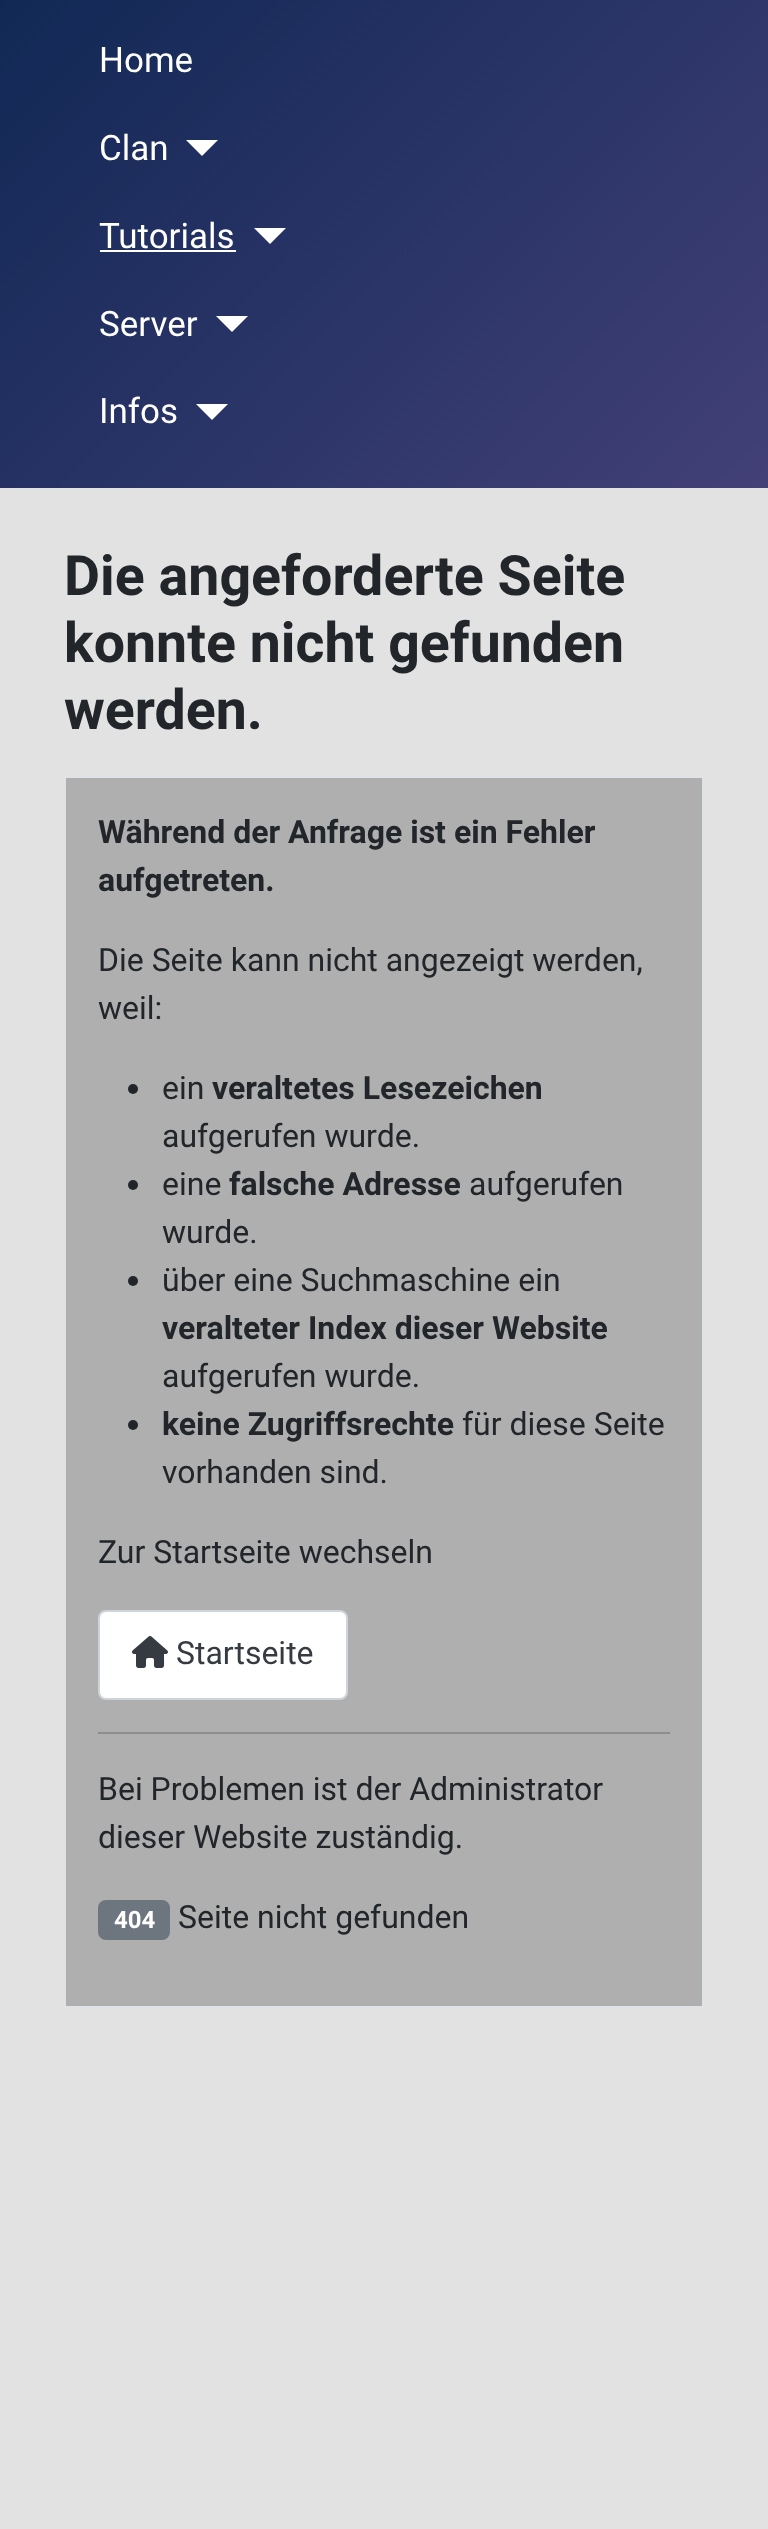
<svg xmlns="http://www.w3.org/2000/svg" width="768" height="2529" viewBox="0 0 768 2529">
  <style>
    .t1 { font: 35px Roboto; fill: #fff; }
    .t2 { font: bold 55.5px Roboto; fill: #22262a; }
    .t3 { font: bold 32px Roboto; fill: #22262a; }
    .t4 { font: 32px Roboto; fill: #22262a; }
    .t5 { font: 32px Roboto; fill: #353b41; }
    .t6 { font: bold 24px Roboto; fill: #fff; }
  </style>
  <defs>
    <linearGradient id="g1" gradientUnits="userSpaceOnUse" x1="70" y1="-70" x2="698" y2="558"><stop offset="0" stop-color="#112855"/><stop offset="1" stop-color="#424077"/></linearGradient>
  </defs>
  <rect width="100%" height="100%" fill="#e2e2e2"/>
  <rect x="0" y="0" width="768" height="488" fill="url(#g1)"/>
  <text x="99" y="72" class="t1">Home</text>
  <text x="99" y="160" class="t1">Clan</text>
  <path d="M186 140H218L202 156Z" fill="#fff"/>
  <text x="99" y="248" class="t1">Tutorials</text>
  <rect x="100" y="250" width="136" height="2" fill="#fff"/>
  <path d="M254 228H286L270 244Z" fill="#fff"/>
  <text x="99" y="336" class="t1">Server</text>
  <path d="M216 316H248L232 332Z" fill="#fff"/>
  <text x="99" y="423" class="t1">Infos</text>
  <path d="M196 404H228L212 420Z" fill="#fff"/>
  <text x="64" y="595" class="t2">Die angeforderte Seite</text>
  <text x="64" y="662" class="t2">konnte nicht gefunden</text>
  <text x="64" y="729" class="t2">werden.</text>
  <rect x="65" y="777" width="638" height="1230" rx="7" fill="none" stroke="#dfe3e7" stroke-width="2"/>
  <rect x="66" y="778" width="636" height="1228" fill="#afafaf"/>
  <text x="98" y="843" class="t3">Während der Anfrage ist ein Fehler</text>
  <text x="98" y="891" class="t3">aufgetreten.</text>
  <text x="98" y="971" class="t4">Die Seite kann nicht angezeigt werden,</text>
  <text x="98" y="1019" class="t4">weil:</text>
  <circle cx="133" cy="1089" r="5" fill="#22262a"/>
  <text x="162" y="1099" class="t4">ein</text>
  <text x="212" y="1099" class="t3">veraltetes Lesezeichen</text>
  <text x="162" y="1147" class="t4">aufgerufen wurde.</text>
  <circle cx="133" cy="1185" r="5" fill="#22262a"/>
  <text x="162" y="1195" class="t4">eine</text>
  <text x="229" y="1195" class="t3">falsche Adresse</text>
  <text x="469" y="1195" class="t4">aufgerufen</text>
  <text x="162" y="1243" class="t4">wurde.</text>
  <circle cx="133" cy="1281" r="5" fill="#22262a"/>
  <text x="162" y="1291" class="t4">über eine Suchmaschine ein</text>
  <text x="162" y="1339" class="t3">veralteter Index dieser Website</text>
  <text x="162" y="1387" class="t4">aufgerufen wurde.</text>
  <circle cx="133" cy="1425" r="5" fill="#22262a"/>
  <text x="162" y="1435" class="t3">keine Zugriffsrechte</text>
  <text x="462" y="1435" class="t4">für diese Seite</text>
  <text x="162" y="1483" class="t4">vorhanden sind.</text>
  <text x="98" y="1563" class="t4">Zur Startseite wechseln</text>
  <rect x="99" y="1611" width="248" height="88" rx="7" fill="#fff" stroke="#ced4da" stroke-width="2"/>
  <image x="132" y="1636" width="36" height="32" href="images/1.png"/>
  <text x="176" y="1664" class="t5">Startseite</text>
  <rect x="98" y="1732" width="572" height="2" fill="#8c8d8e"/>
  <text x="98" y="1800" class="t4">Bei Problemen ist der Administrator</text>
  <text x="98" y="1848" class="t4">dieser Website zuständig.</text>
  <rect x="98" y="1900" width="72" height="40" rx="8" fill="#6d757e"/>
  <text x="114" y="1928" class="t6">404</text>
  <text x="178" y="1928" class="t4">Seite nicht gefunden</text>
</svg>
